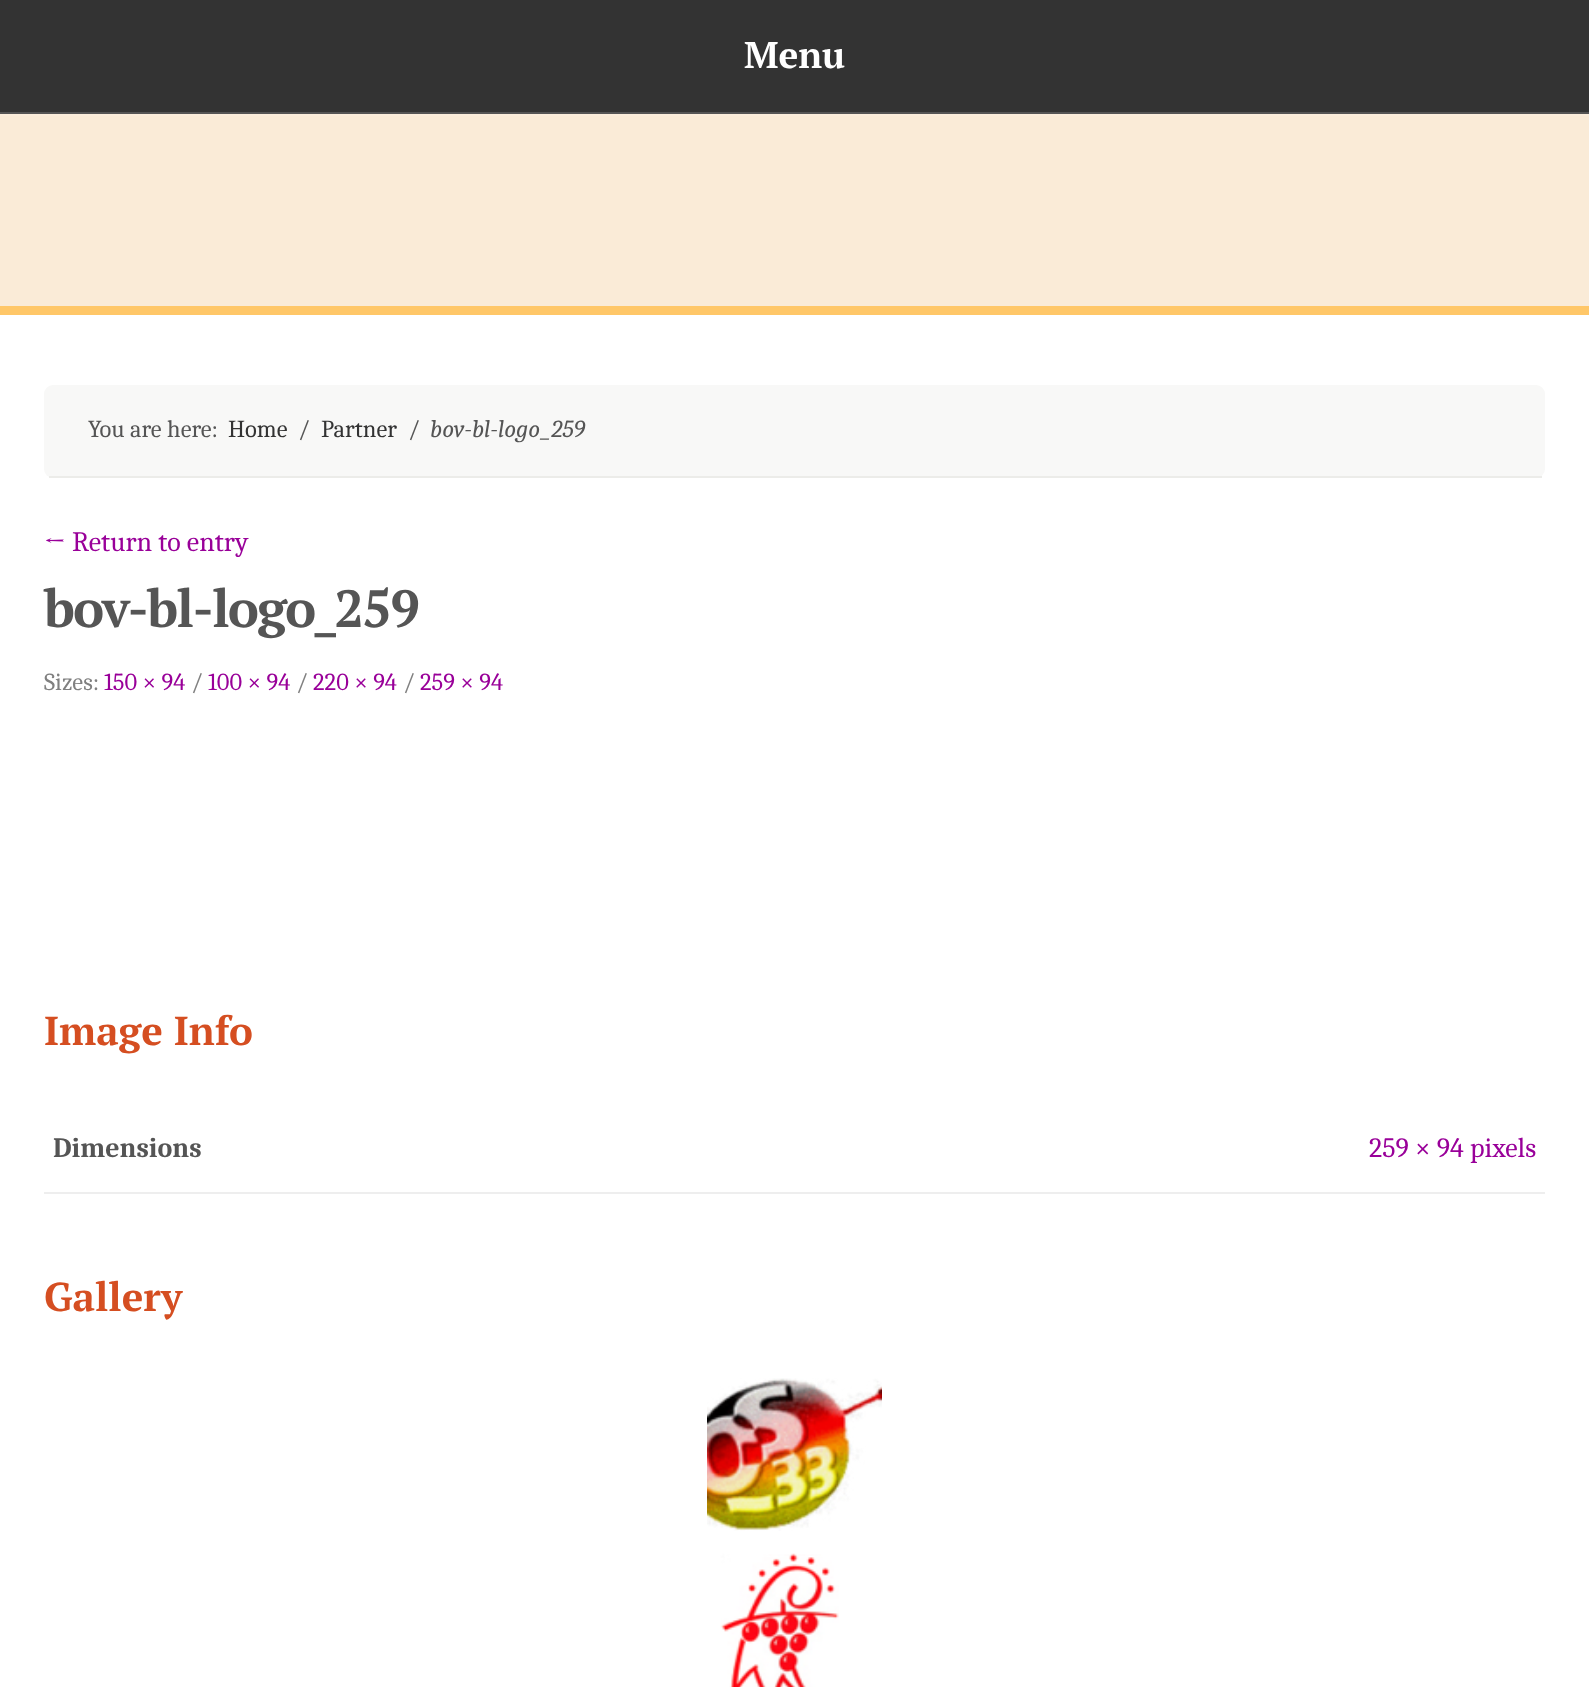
<svg xmlns="http://www.w3.org/2000/svg" width="1589" height="1687" viewBox="0 0 1589 1687">
  <style>
    .t1 { font: bold 37px PT Serif; fill: #fff; }
    .t2 { font: 24.5px Caladea; fill: #555; }
    .t3 { font: 24.5px Caladea; fill: #333; }
    .t4 { font: italic 24.5px Caladea; fill: #555; }
    .t5 { font: 28px Caladea; fill: #909; }
    .t6 { font: bold 52.5px PT Serif; letter-spacing: -1.75px; fill: #555; }
    .t7 { font: 24.5px Caladea; fill: #808080; }
    .t8 { font: 24.5px Caladea; fill: #909; }
    .t9 { font: bold 40.25px PT Serif; fill: #d54e21; }
    .t10 { font: bold 28px Caladea; fill: #555; }
  </style>
  <rect width="100%" height="100%" fill="#faebd7"/>
  <rect x="0" y="114" width="1589" height="2" fill="#fbeddb"/>
  <rect x="0" y="0" width="1589" height="112" fill="#333"/>
  <rect x="0" y="112" width="1589" height="2" fill="#555"/>
  <text x="744" y="68" class="t1">Menu</text>
  <rect x="0" y="315" width="1589" height="1372" fill="#fff"/>
  <rect x="0" y="306" width="1589" height="9" fill="#ffc768"/>
  <rect x="44" y="385" width="1501" height="93" rx="9" fill="#f8f8f7"/>
  <rect x="49" y="476" width="1493" height="2" fill="#ecece9"/>
  <text x="88" y="437" class="t2">You are here:</text>
  <text x="228" y="437" class="t3">Home</text>
  <text x="298" y="437" class="t2">/</text>
  <text x="321" y="437" class="t3">Partner</text>
  <text x="408" y="437" class="t2">/</text>
  <text x="430" y="437" class="t4">bov-bl-logo_259</text>
  <text x="44" y="551" class="t5">← Return to entry</text>
  <text x="44" y="627" class="t6">bov-bl-logo_259</text>
  <text x="44" y="690" class="t7">Sizes:</text>
  <text x="104" y="690" class="t8">150 × 94</text>
  <text x="191" y="690" class="t7">/</text>
  <text x="208" y="690" class="t8">100 × 94</text>
  <text x="296" y="690" class="t7">/</text>
  <text x="313" y="690" class="t8">220 × 94</text>
  <text x="403" y="690" class="t7">/</text>
  <text x="420" y="690" class="t8">259 × 94</text>
  <text x="44" y="1045" class="t9">Image Info</text>
  <text x="53" y="1157" class="t10">Dimensions</text>
  <rect x="44" y="1192" width="1501" height="2" fill="#eee"/>
  <text x="1369" y="1157" class="t5">259 × 94 pixels</text>
  <text x="44" y="1311" class="t9">Gallery</text>
  <image x="707" y="1378" width="175" height="153" href="images/1.png"/>
  <image x="720" y="1553" width="119" height="134" href="images/2.png"/>
</svg>
